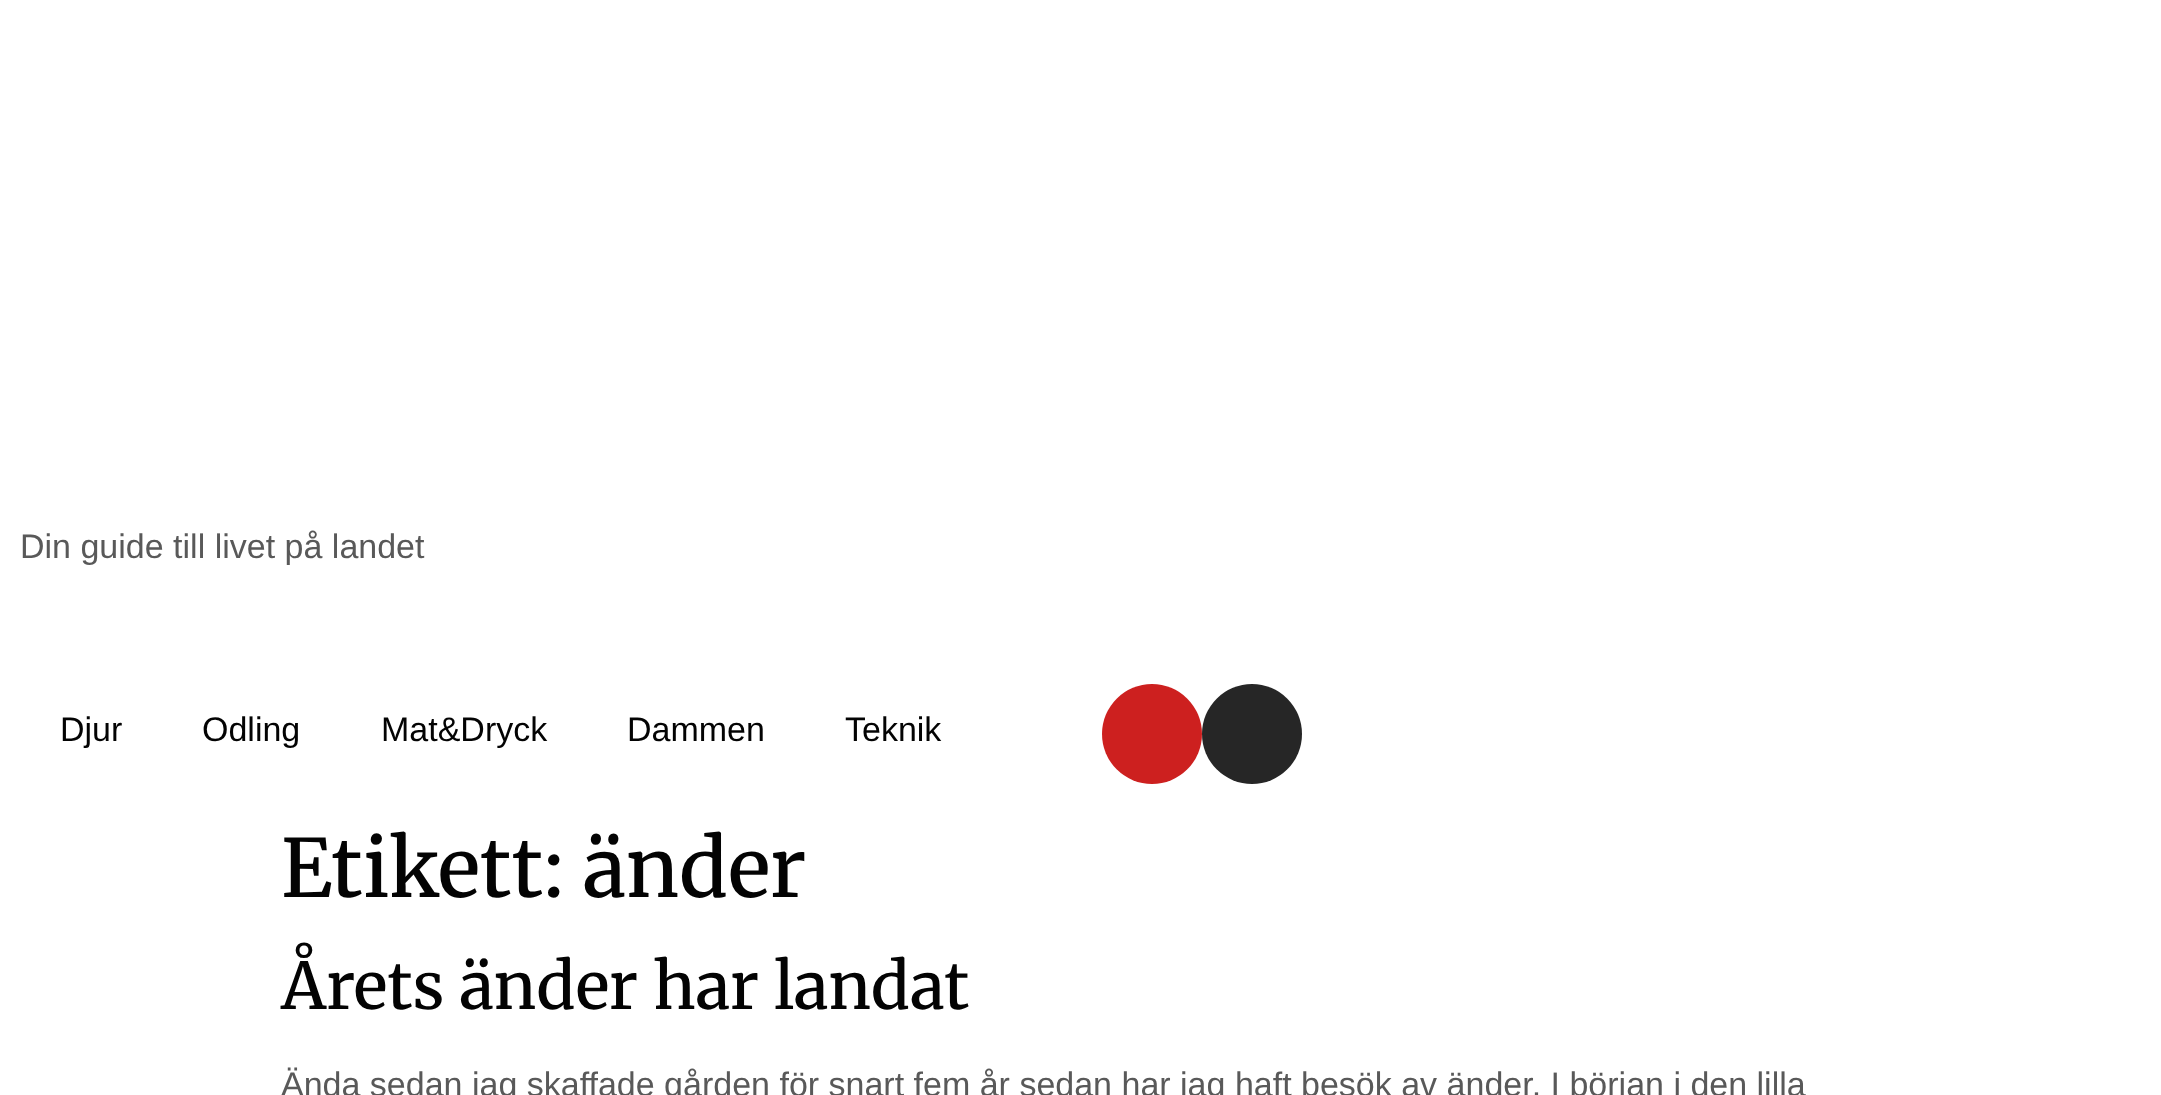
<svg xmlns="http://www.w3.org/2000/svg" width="2161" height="1095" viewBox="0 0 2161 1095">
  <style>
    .t1 { font: 34px Liberation Sans; fill: #595959; }
    .t2 { font: 34px Liberation Sans; fill: #030303; }
    .t3 { font: 500 80px Merriweather; fill: #030303; }
    .t4 { font: 500 64px Merriweather; fill: #030303; }
  </style>
  <rect width="100%" height="100%" fill="#fff"/>
  <text x="20" y="558" class="t1">Din guide till livet på landet</text>
  <text x="60" y="741" class="t2">Djur</text>
  <text x="202" y="741" class="t2">Odling</text>
  <text x="381" y="741" class="t2">Mat&amp;Dryck</text>
  <text x="627" y="741" class="t2">Dammen</text>
  <text x="845" y="741" class="t2">Teknik</text>
  <circle cx="1152" cy="734" r="50" fill="#cd201f"/>
  <circle cx="1252" cy="734" r="50" fill="#262626"/>
  <text x="281" y="897" class="t3">Etikett: änder</text>
  <text x="281" y="1009" class="t4">Årets änder har landat</text>
  <text x="281" y="1096" class="t1">Ända sedan jag skaffade gården för snart fem år sedan har jag haft besök av änder. I början i den lilla</text>
</svg>
